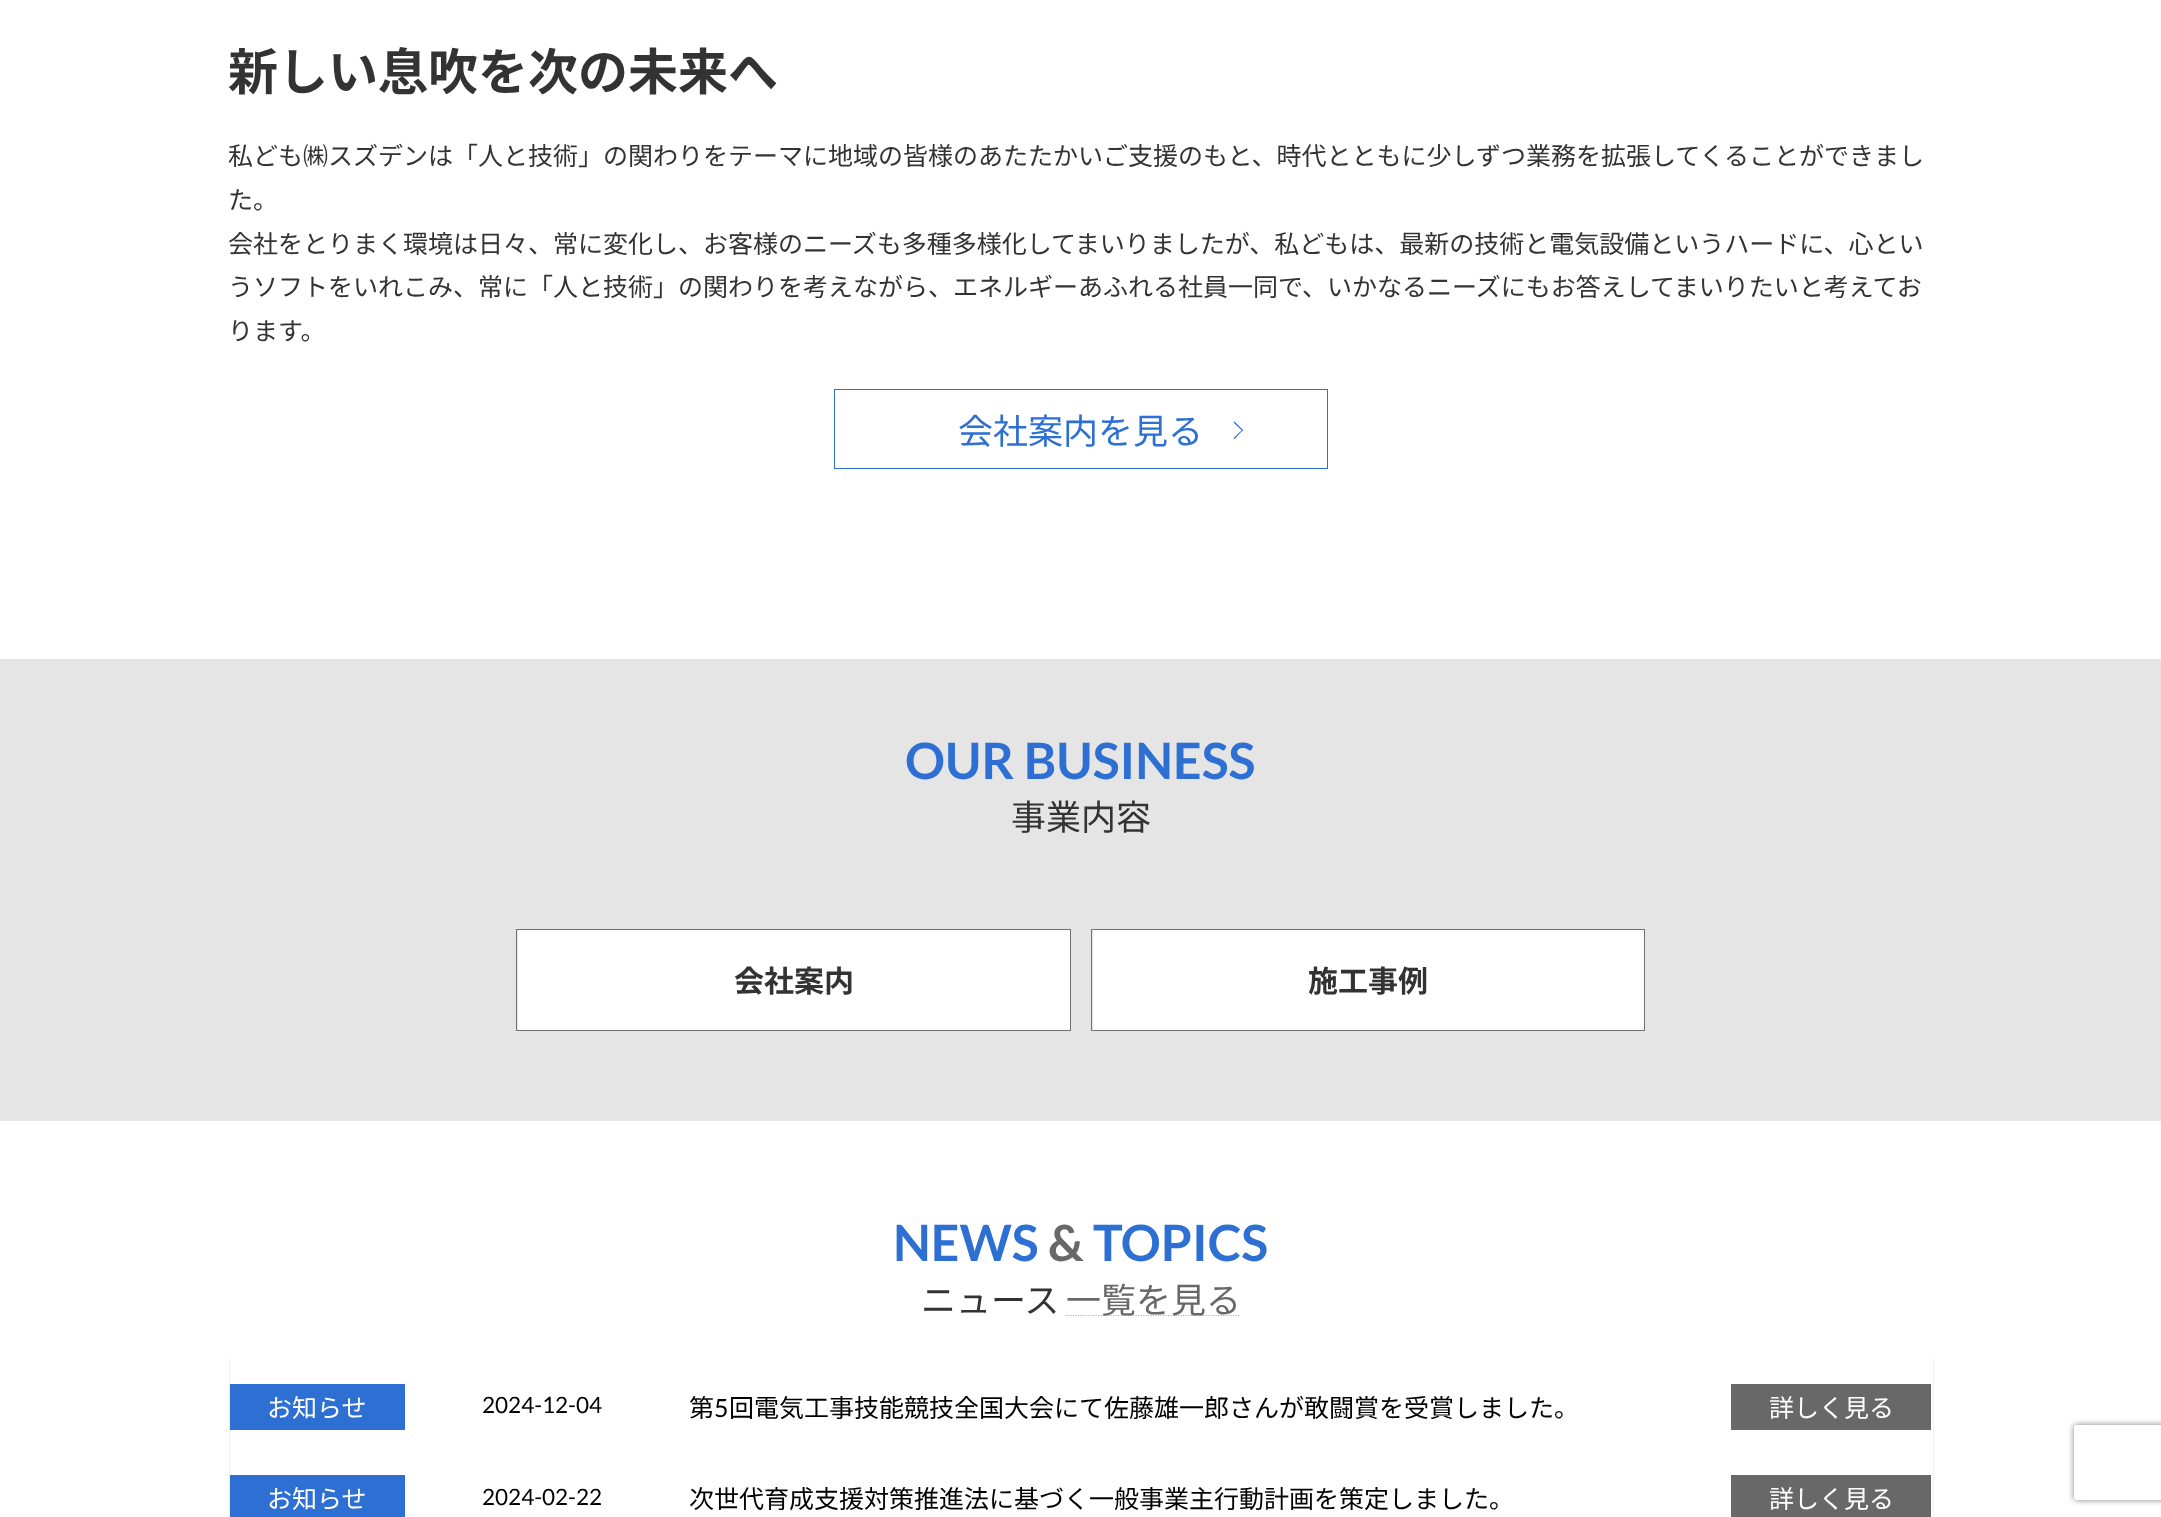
<svg xmlns="http://www.w3.org/2000/svg" width="2161" height="1517" viewBox="0 0 2161 1517">
  <style>
    .t1 { font: bold 50px Noto Sans JP; fill: #333; }
    .t2 { font: 25px Noto Sans JP; fill: #333; }
    .t3 { font: 35px Noto Sans JP; fill: #2d6fd2; }
    .t4 { font: bold 50px Lato; fill: #2d6fd2; }
    .t5 { font: 35px Noto Sans JP; fill: #333; }
    .t6 { font: bold 30px Noto Sans JP; fill: #333; }
    .t7 { font: bold 50px Lato; fill: #686868; }
    .t8 { font: 35px Noto Sans JP; fill: #686868; }
    .t9 { font: 25px Noto Sans JP; fill: #fff; }
    .t10 { font: 22.5px Lato; fill: #000; }
    .t11 { font: 25px Noto Sans JP; fill: #000; }
    .t12 { font: 25px Lato; fill: #000; }
  </style>
  <defs>
    <clipPath id="clip1"><path d="M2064 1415H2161V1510H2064ZM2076.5 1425H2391.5C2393 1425 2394 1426 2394 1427.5V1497.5C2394 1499 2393 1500 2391.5 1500H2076.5C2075 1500 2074 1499 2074 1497.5V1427.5C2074 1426 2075 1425 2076.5 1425Z" clip-rule="evenodd"/></clipPath>
  </defs>
  <rect width="100%" height="100%" fill="#fff"/>
  <text x="228" y="90" class="t1">新しい息吹を次の未来へ</text>
  <text x="228" y="165" class="t2">私ども㈱スズデンは「人と技術」の関わりをテーマに地域の皆様のあたたかいご支援のもと、時代とともに少しずつ業務を拡張してくることができまし</text>
  <text x="228" y="209" class="t2">た。</text>
  <text x="228" y="253" class="t2">会社をとりまく環境は日々、常に変化し、お客様のニーズも多種多様化してまいりましたが、私どもは、最新の技術と電気設備というハードに、心とい</text>
  <text x="228" y="296" class="t2">うソフトをいれこみ、常に「人と技術」の関わりを考えながら、エネルギーあふれる社員一同で、いかなるニーズにもお答えしてまいりたいと考えてお</text>
  <text x="228" y="340" class="t2">ります。</text>
  <rect x="834.5" y="389.5" width="493" height="79" fill="none" stroke="#2d6fd2"/>
  <text x="958" y="444" class="t3">会社案内を見る</text>
  <path d="M1233.5 422.5L1234.5 421.5L1243 430L1242.5 431Z" fill="#2d6fd2"/>
  <path d="M1233.5 438L1242.5 429.5L1243 430L1234.5 439Z" fill="#2d6fd2"/>
  <rect x="0" y="659" width="2161" height="462" fill="#e5e5e5"/>
  <text x="905" y="779" class="t4">OUR BUSINESS</text>
  <text x="1011" y="830" class="t5">事業内容</text>
  <rect x="516.5" y="929.5" width="554" height="101" fill="none" stroke="#707070"/>
  <rect x="518" y="930" width="552" height="100" fill="#fff"/>
  <text x="734" y="992" class="t6">会社案内</text>
  <rect x="1091.5" y="929.5" width="553" height="101" fill="none" stroke="#707070"/>
  <rect x="1093" y="930" width="551" height="100" fill="#fff"/>
  <text x="1308" y="992" class="t6">施工事例</text>
  <text x="893" y="1261" class="t4">NEWS</text>
  <text x="1048" y="1261" class="t7">&amp;</text>
  <text x="1093" y="1261" class="t4">TOPICS</text>
  <text x="921" y="1313" class="t5">ニュース</text>
  <path d="M1065.5 1315.5H1240.5" fill="none" stroke="#b3b3b3" stroke-width="1.2" stroke-dasharray="1.25 1.25"/>
  <text x="1066" y="1313" class="t8">一覧を見る</text>
  <rect x="1933" y="1358" width="1" height="159" fill="#f0f0f0"/>
  <rect x="229" y="1358" width="1" height="159" fill="#f0f0f0"/>
  <rect x="230" y="1384" width="175" height="46" fill="#2d6fd2"/>
  <text x="267" y="1417" class="t9">お知らせ</text>
  <text x="482" y="1413" class="t10">2024-12-04</text>
  <text x="689" y="1417" class="t11">第</text>
  <text x="714" y="1417" class="t12">5</text>
  <text x="729" y="1417" class="t11">回電気工事技能競技全国大会にて佐藤雄一郎さんが敢闘賞を受賞しました。</text>
  <rect x="1731" y="1384" width="200" height="46" fill="#686868"/>
  <text x="1769" y="1417" class="t9">詳しく見る</text>
  <rect x="230" y="1475" width="175" height="42" fill="#2d6fd2"/>
  <text x="267" y="1508" class="t9">お知らせ</text>
  <text x="482" y="1505" class="t10">2024-02-22</text>
  <text x="689" y="1508" class="t11">次世代育成支援対策推進法に基づく一般事業主行動計画を策定しました。</text>
  <rect x="1731" y="1475" width="200" height="42" fill="#686868"/>
  <text x="1769" y="1508" class="t9">詳しく見る</text>
  <g clip-path="url(#clip1)">
    <rect x="2074" y="1425" width="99" height="75" rx="2.5" fill="#808080" filter="blur(3px)"/>
  </g>
</svg>
